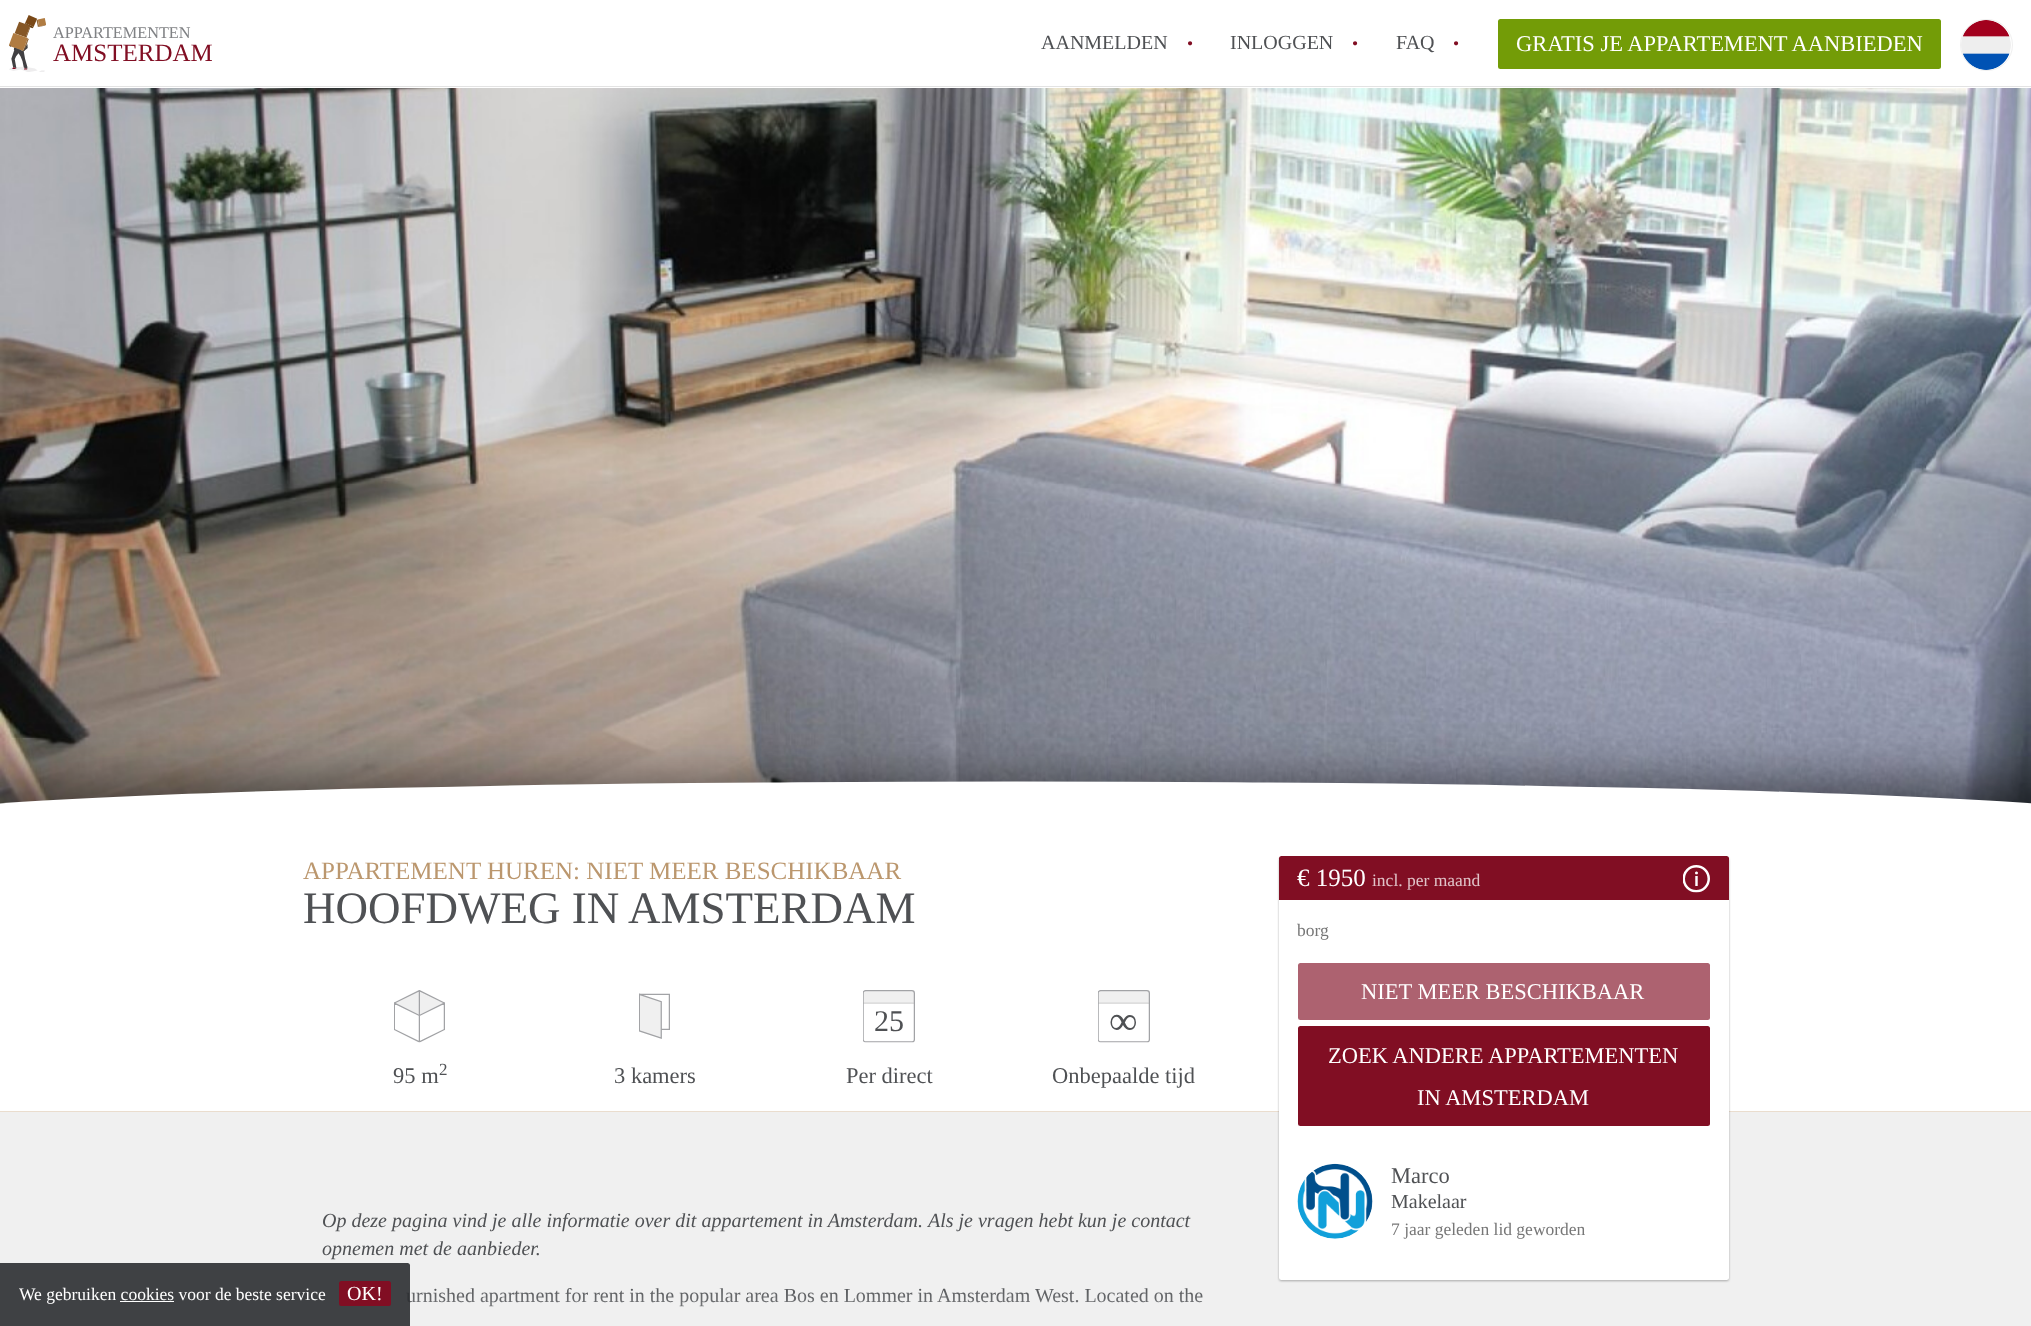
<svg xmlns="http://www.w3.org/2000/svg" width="2031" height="1326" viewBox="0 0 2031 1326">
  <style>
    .t1 { font: 16.25px Liberation Serif; fill: #808285; }
    .t2 { font: 25px Liberation Serif; fill: #810e23; }
    .t3 { font: 20px Liberation Serif; fill: #4f5154; }
    .t4 { font: 17.5px Liberation Serif; fill: #810e23; }
    .t5 { font: 22.5px Liberation Serif; fill: #fff; }
    .t6 { font: 25px Liberation Serif; fill: #bb976e; }
    .t7 { font: 45px Liberation Serif; fill: #4f5154; }
    .t8 { font: 22.5px Liberation Serif; fill: #4f5154; }
    .t9 { font: 17px Liberation Serif; fill: #4f5154; }
    .t10 { font: 30px Liberation Serif; fill: #4f5154; }
    .t11 { font: 40px Liberation Serif; fill: #4f5154; }
    .t12 { font: 25px Liberation Serif; fill: #fff; }
    .t13 { font: 17.5px Liberation Serif; fill: #e0c3c8; }
    .t14 { font: 17.5px Liberation Serif; fill: #777; }
    .t15 { font: 17.5px Liberation Serif; fill: #fff; }
    .t16 { font: 20px Liberation Serif; fill: #fff; }
    .t17 { font: italic 20px Liberation Serif; fill: #4f5154; }
  </style>
  <defs>
    <clipPath id="clip1"><rect x="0" y="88" width="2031" height="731"/></clipPath>
    <clipPath id="clip2"><rect x="0" y="88" width="2031" height="731"/></clipPath>
    <linearGradient id="g1" gradientUnits="userSpaceOnUse" x1="779" y1="1283" x2="779" y2="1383"><stop offset="0" stop-color="#f0f0f0" stop-opacity="0"/><stop offset="1" stop-color="#f0f0f0"/></linearGradient>
  </defs>
  <rect width="100%" height="100%" fill="#fff"/>
  <rect x="0" y="86" width="2031" height="1" fill="#e3e3e3"/>
  <image x="9" y="15" width="37" height="57" href="images/1.png"/>
  <text x="53" y="38" class="t1">APPARTEMENTEN</text>
  <text x="53" y="61" class="t2">AMSTERDAM</text>
  <text x="1041" y="49" class="t3">AANMELDEN</text>
  <text x="1187" y="49" class="t4">•</text>
  <text x="1230" y="49" class="t3">INLOGGEN</text>
  <text x="1352" y="49" class="t4">•</text>
  <text x="1396" y="49" class="t3">FAQ</text>
  <text x="1453" y="49" class="t4">•</text>
  <rect x="1498" y="19" width="443" height="50" rx="2.5" fill="#739c07"/>
  <text x="1516" y="51" class="t5">GRATIS JE APPARTEMENT AANBIEDEN</text>
  <rect x="1960.5" y="19.5" width="52" height="51" rx="25.5" fill="none" stroke="#f0f0f0"/>
  <image x="1961" y="20" width="50" height="50" href="images/2.png"/>
  <image x="0" y="88" width="2031" height="716" href="images/3.png"/>
  <g clip-path="url(#clip1)">
    <rect x="-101" y="781" width="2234" height="75" rx="37.5" fill="#00000080" filter="blur(25px)"/>
  </g>
  <g clip-path="url(#clip2)">
    <ellipse cx="1016" cy="819" rx="1117" ry="37.5" fill="#fff"/>
  </g>
  <text x="303" y="879" class="t6">APPARTEMENT HUREN: NIET MEER BESCHIKBAAR</text>
  <text x="303" y="923" class="t7">HOOFDWEG IN AMSTERDAM</text>
  <image x="394" y="990" width="51" height="53" href="images/4.png"/>
  <text x="393" y="1083" class="t8">95 m</text>
  <text x="439" y="1075" class="t9">2</text>
  <image x="639" y="993" width="31" height="46" href="images/5.png"/>
  <text x="614" y="1083" class="t8">3 kamers</text>
  <image x="863" y="990" width="52" height="53" href="images/6.png"/>
  <text x="874" y="1031" class="t10">25</text>
  <text x="846" y="1083" class="t8">Per direct</text>
  <image x="1098" y="990" width="52" height="53" href="images/6.png"/>
  <text x="1109" y="1034" class="t11">∞</text>
  <text x="1052" y="1083" class="t8">Onbepaalde tijd</text>
  <rect x="0" y="1112" width="2031" height="214" fill="#f0f0f0"/>
  <rect x="0" y="1111" width="2031" height="1" fill="#eaddce"/>
  <rect x="1279" y="858" width="450" height="423" rx="2.5" fill="#0000004d" filter="blur(1px)"/>
  <rect x="1279" y="856" width="450" height="424" rx="2.5" fill="#fff"/>
  <path d="M1281.5 856H1726.5C1728 856 1729 857 1729 858.5V900H1279V858.5C1279 857 1280 856 1281.5 856Z" fill="#810e23"/>
  <text x="1297" y="886" class="t12">€ 1950</text>
  <text x="1372" y="886" class="t13">incl. per maand</text>
  <image x="1683" y="865" width="27" height="28" href="images/7.png"/>
  <text x="1297" y="936" class="t14">borg</text>
  <rect x="1298" y="963" width="412" height="57" rx="2.5" fill="#ad6270"/>
  <text x="1361" y="999" class="t5">NIET MEER BESCHIKBAAR</text>
  <rect x="1298" y="1026" width="412" height="100" rx="2.5" fill="#810e23"/>
  <text x="1328" y="1063" class="t5">ZOEK ANDERE APPARTEMENTEN</text>
  <text x="1417" y="1105" class="t5">IN AMSTERDAM</text>
  <image x="1297" y="1163" width="76" height="76" href="images/8.png"/>
  <text x="1391" y="1183" class="t8">Marco</text>
  <text x="1391" y="1208" class="t3">Makelaar</text>
  <text x="1391" y="1235" class="t14">7 jaar geleden lid geworden</text>
  <text x="406" y="1302" class="t3">urnished apartment for rent in the popular area Bos en Lommer in Amsterdam West. Located on the</text>
  <rect x="406" y="1288" width="797" height="19" fill="url(#g1)"/>
  <path d="M0 1263H407.5C409 1263 410 1264 410 1265.5V1326H0Z" fill="#2b2d31e6"/>
  <text x="19" y="1300" class="t15">We gebruiken cookies voor de beste service</text>
  <rect x="339" y="1281" width="52" height="25" rx="2.5" fill="#810e23"/>
  <text x="347" y="1300" class="t16">OK!</text>
  <rect x="120" y="1301" width="54" height="1" fill="#fff"/>
  <text x="322" y="1227" class="t17">Op deze pagina vind je alle informatie over dit appartement in Amsterdam.</text>
  <text x="928" y="1227" class="t17">Als je vragen hebt kun je contact</text>
  <text x="322" y="1255" class="t17">opnemen met de aanbieder.</text>
</svg>
